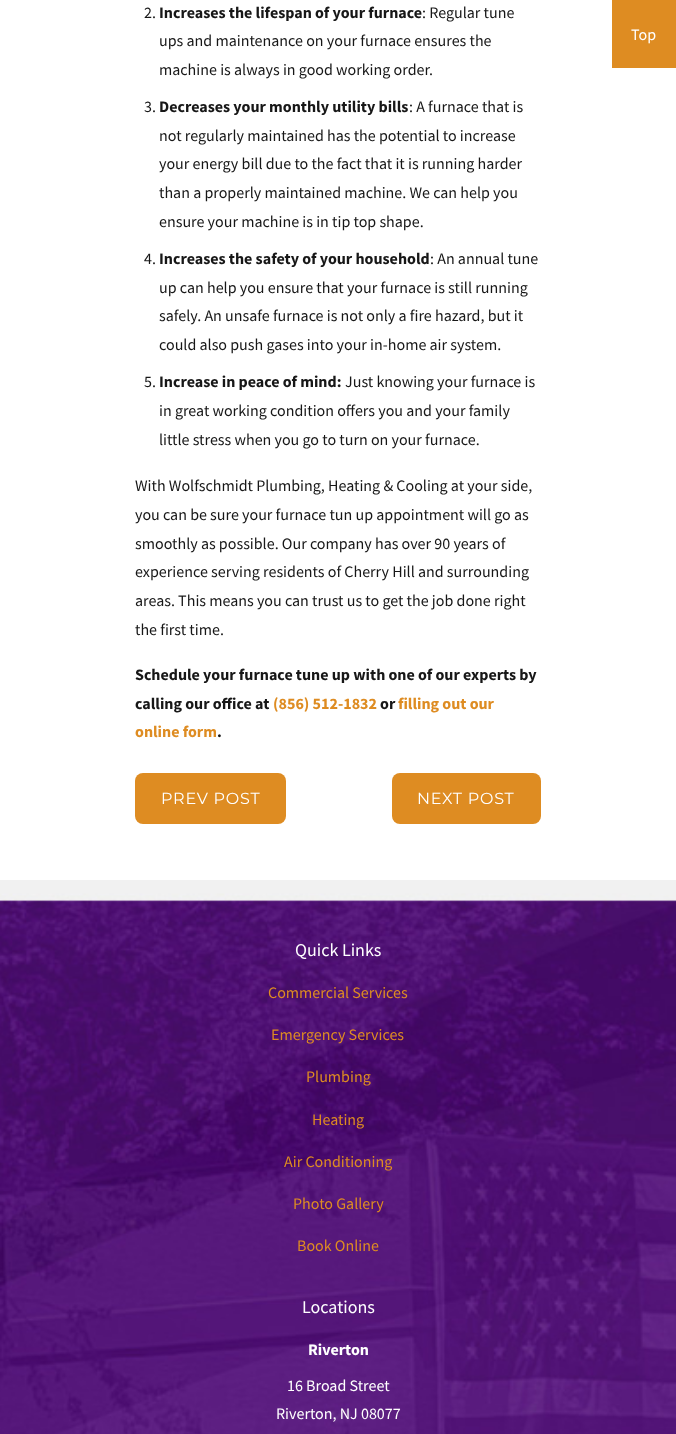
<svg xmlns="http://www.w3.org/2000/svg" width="676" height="1434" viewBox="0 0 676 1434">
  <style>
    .t1 { font: 16px Source Sans Pro; fill: #171717; }
    .t2 { font: bold 16px Source Sans Pro; fill: #171717; }
    .t3 { font: bold 16px Source Sans Pro; fill: #de8c22; }
    .t4 { font: 16px Montserrat; letter-spacing: 0.75px; fill: #fff; }
    .t5 { font: 16px Source Sans Pro; fill: #fff; }
    .t6 { font: 18px Source Sans Pro; fill: #fff; }
    .t7 { font: 16px Source Sans Pro; fill: #de8c22; }
    .t8 { font: bold 16px Source Sans Pro; fill: #fff; }
  </style>
  <rect width="100%" height="100%" fill="#fff"/>
  <text x="144" y="18" class="t1">2.</text>
  <text x="159" y="18" class="t2">Increases the lifespan of your furnace</text>
  <text x="422" y="18" class="t1">: Regular tune</text>
  <text x="159" y="46" class="t1">ups and maintenance on your furnace ensures the</text>
  <text x="159" y="75" class="t1">machine is always in good working order.</text>
  <text x="144" y="112" class="t1">3.</text>
  <text x="159" y="112" class="t2">Decreases your monthly utility bills</text>
  <text x="409" y="112" class="t1">: A furnace that is</text>
  <text x="159" y="141" class="t1">not regularly maintained has the potential to increase</text>
  <text x="159" y="169" class="t1">your energy bill due to the fact that it is running harder</text>
  <text x="159" y="198" class="t1">than a properly maintained machine. We can help you</text>
  <text x="159" y="227" class="t1">ensure your machine is in tip top shape.</text>
  <text x="144" y="264" class="t1">4.</text>
  <text x="159" y="264" class="t2">Increases the safety of your household</text>
  <text x="430" y="264" class="t1">: An annual tune</text>
  <text x="159" y="293" class="t1">up can help you ensure that your furnace is still running</text>
  <text x="159" y="321" class="t1">safely. An unsafe furnace is not only a fire hazard, but it</text>
  <text x="159" y="350" class="t1">could also push gases into your in-home air system.</text>
  <text x="144" y="387" class="t1">5.</text>
  <text x="159" y="387" class="t2">Increase in peace of mind:</text>
  <text x="345" y="387" class="t1">Just knowing your furnace is</text>
  <text x="159" y="416" class="t1">in great working condition offers you and your family</text>
  <text x="159" y="445" class="t1">little stress when you go to turn on your furnace.</text>
  <text x="135" y="491" class="t1">With Wolfschmidt Plumbing, Heating &amp; Cooling at your side,</text>
  <text x="135" y="520" class="t1">you can be sure your furnace tun up appointment will go as</text>
  <text x="135" y="549" class="t1">smoothly as possible. Our company has over 90 years of</text>
  <text x="135" y="577" class="t1">experience serving residents of Cherry Hill and surrounding</text>
  <text x="135" y="606" class="t1">areas. This means you can trust us to get the job done right</text>
  <text x="135" y="635" class="t1">the first time.</text>
  <text x="135" y="680" class="t2">Schedule your furnace tune up with one of our experts by</text>
  <text x="135" y="709" class="t2">calling our office at</text>
  <text x="273" y="709" class="t3">(856) 512-1832</text>
  <text x="380" y="709" class="t2">or</text>
  <text x="398" y="709" class="t3">filling out our</text>
  <text x="135" y="737" class="t3">online form</text>
  <text x="217" y="737" class="t2">.</text>
  <rect x="135" y="773" width="151" height="51" rx="8" fill="#de8c22"/>
  <text x="161" y="804" class="t4">PREV POST</text>
  <rect x="392" y="773" width="149" height="51" rx="8" fill="#de8c22"/>
  <text x="417" y="804" class="t4">NEXT POST</text>
  <rect x="612" y="0" width="64" height="68" fill="#de8c22"/>
  <text x="631" y="40" class="t5">Top</text>
  <image x="0" y="880" width="676" height="554" href="images/1.png"/>
  <text x="295" y="956" class="t6">Quick Links</text>
  <text x="268" y="998" class="t7">Commercial Services</text>
  <text x="271" y="1040" class="t7">Emergency Services</text>
  <text x="306" y="1082" class="t7">Plumbing</text>
  <text x="312" y="1125" class="t7">Heating</text>
  <text x="284" y="1167" class="t7">Air Conditioning</text>
  <text x="293" y="1209" class="t7">Photo Gallery</text>
  <text x="297" y="1251" class="t7">Book Online</text>
  <text x="302" y="1313" class="t6">Locations</text>
  <text x="308" y="1355" class="t8">Riverton</text>
  <text x="287" y="1391" class="t5">16 Broad Street</text>
  <text x="276" y="1419" class="t5">Riverton, NJ 08077</text>
</svg>
